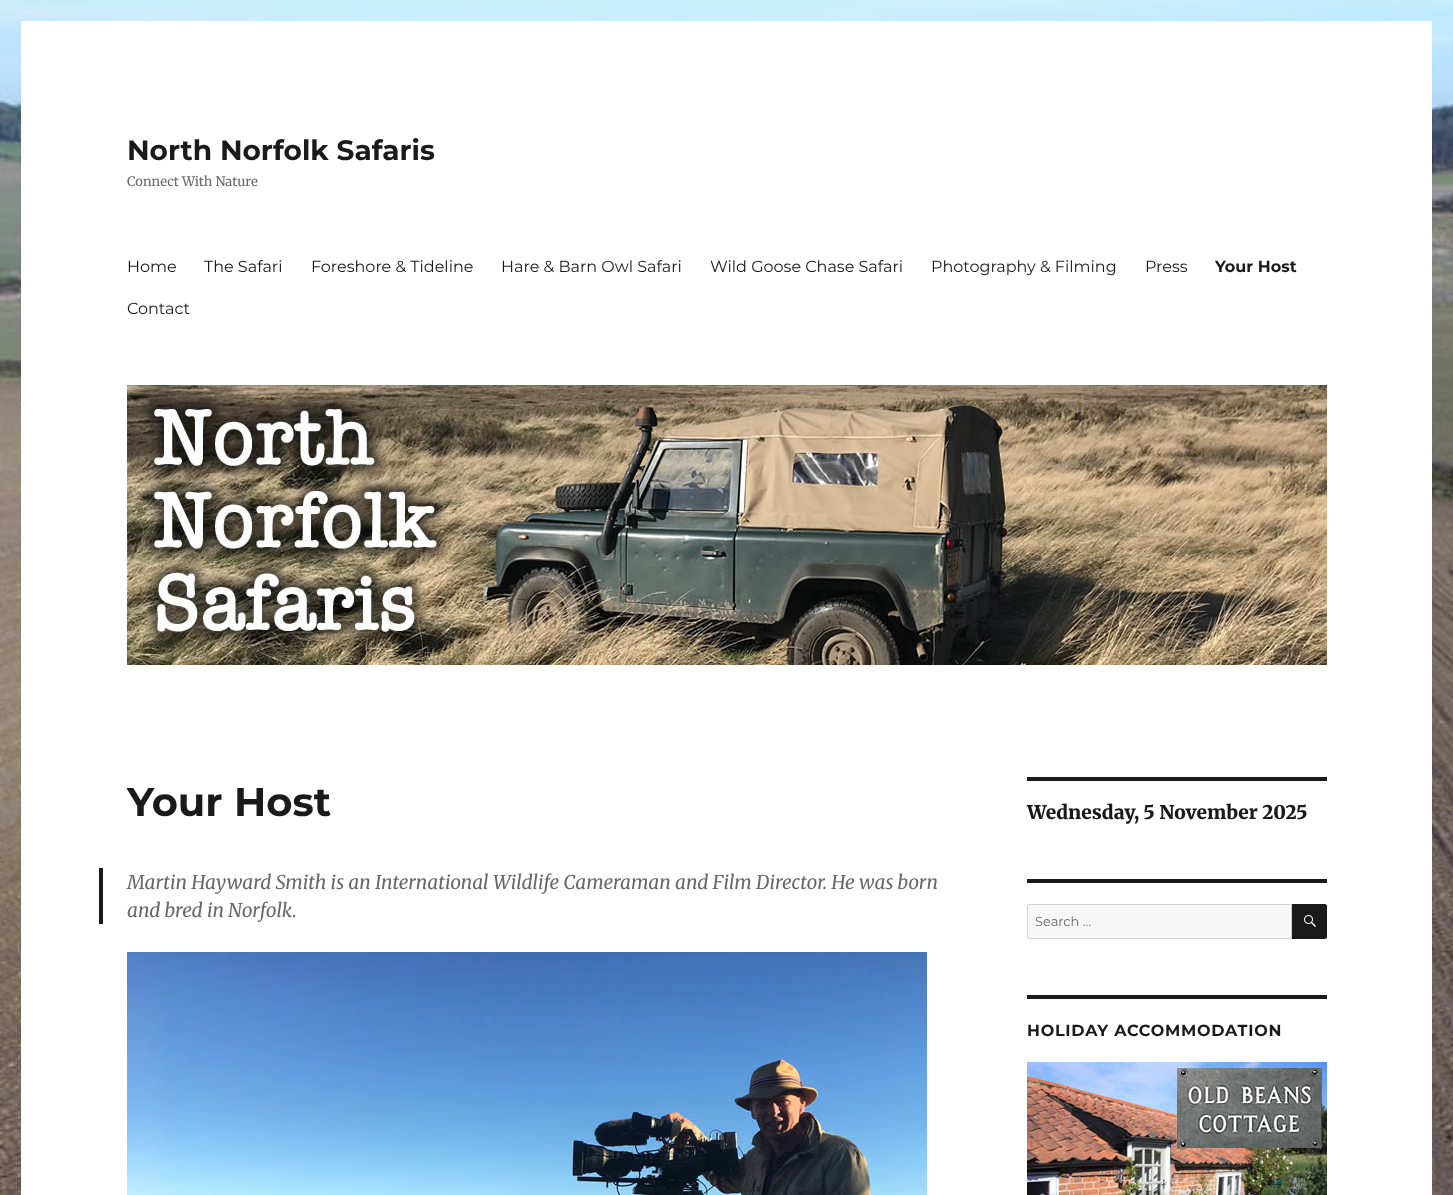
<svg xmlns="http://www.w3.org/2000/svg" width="1453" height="1195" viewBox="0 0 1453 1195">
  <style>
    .t1 { font: bold 28px Montserrat; fill: #1a1a1a; }
    .t2 { font: 13px Merriweather; fill: #686868; }
    .t3 { font: 16px Montserrat; fill: #1a1a1a; }
    .t4 { font: bold 16px Montserrat; fill: #1a1a1a; }
    .t5 { font: bold 40px Montserrat; fill: #1a1a1a; }
    .t6 { font: italic 19px Merriweather; fill: #686868; }
    .t7 { font: 900 19px Merriweather; fill: #1a1a1a; }
    .t8 { font: 13px Montserrat; fill: #686868; }
    .t9 { font: bold 16px Montserrat; letter-spacing: 0.75px; fill: #1a1a1a; }
  </style>
  <rect width="100%" height="100%" fill="#fff"/>
  <image x="0" y="0" width="1453" height="1195" href="images/1.png"/>
  <rect x="21" y="21" width="1411" height="1174" fill="#fff"/>
  <text x="127" y="160" class="t1">North Norfolk Safaris</text>
  <text x="127" y="186" class="t2">Connect With Nature</text>
  <text x="127" y="272" class="t3">Home</text>
  <text x="204" y="272" class="t3">The Safari</text>
  <text x="311" y="272" class="t3">Foreshore &amp; Tideline</text>
  <text x="501" y="272" class="t3">Hare &amp; Barn Owl Safari</text>
  <text x="710" y="272" class="t3">Wild Goose Chase Safari</text>
  <text x="931" y="272" class="t3">Photography &amp; Filming</text>
  <text x="1145" y="272" class="t3">Press</text>
  <text x="1215" y="272" class="t4">Your Host</text>
  <text x="127" y="314" class="t3">Contact</text>
  <image x="127" y="385" width="1200" height="280" href="images/2.png"/>
  <text x="127" y="816" class="t5">Your Host</text>
  <rect x="99" y="868" width="4" height="56" fill="#1a1a1a"/>
  <text x="127" y="889" class="t6">Martin Hayward Smith is an International Wildlife Cameraman and Film Director. He was born</text>
  <text x="127" y="917" class="t6">and bred in Norfolk.</text>
  <image x="127" y="952" width="800" height="243" href="images/3.png"/>
  <rect x="1027" y="777" width="300" height="4" fill="#1a1a1a"/>
  <text x="1027" y="819" class="t7">Wednesday, 5 November 2025</text>
  <rect x="1027" y="879" width="300" height="4" fill="#1a1a1a"/>
  <path d="M1029 904.5H1291.5V938.5H1029C1028 938.5 1027.5 938 1027.5 937V906C1027.5 905 1028 904.5 1029 904.5Z" fill="#f7f7f7" stroke="#d1d1d1"/>
  <text x="1035" y="926" class="t8">Search …</text>
  <path d="M1292 904H1325C1326 904 1327 905 1327 906V937C1327 938 1326 939 1325 939H1292Z" fill="#1a1a1a"/>
  <image x="1304" y="915" width="12" height="12" href="images/4.png"/>
  <rect x="1027" y="995" width="300" height="4" fill="#1a1a1a"/>
  <text x="1027" y="1036" class="t9">HOLIDAY ACCOMMODATION</text>
  <image x="1027" y="1062" width="300" height="133" href="images/5.png"/>
</svg>
